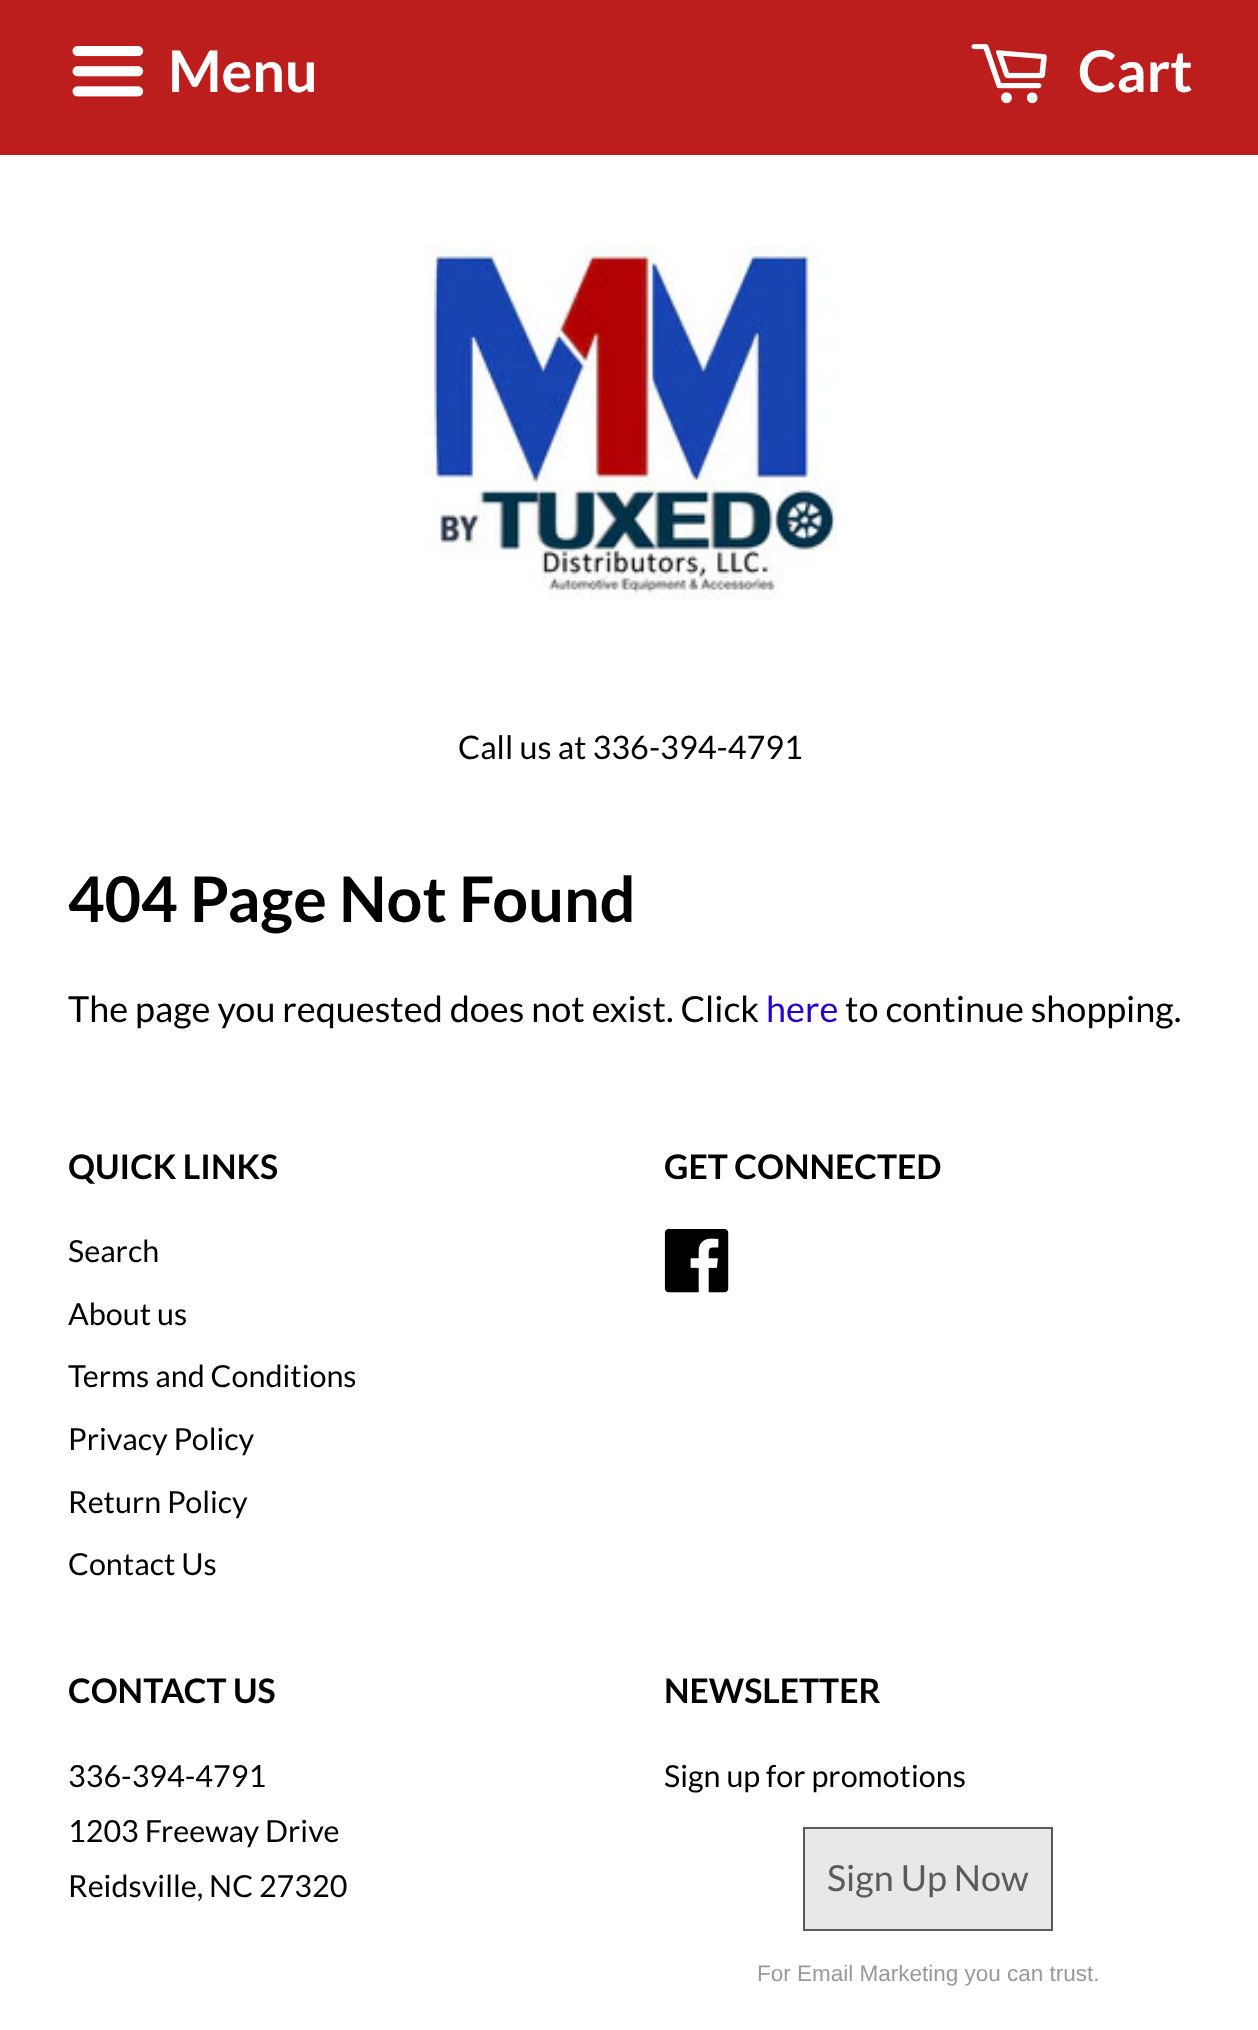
<svg xmlns="http://www.w3.org/2000/svg" width="1258" height="2030" viewBox="0 0 1258 2030">
  <style>
    .t1 { font: bold 57.5px Lato; fill: #fff; }
    .t2 { font: 32.4px Lato; fill: #030000; }
    .t3 { font: bold 63px Lato; fill: #030000; }
    .t4 { font: 36px Lato; fill: #030000; }
    .t5 { font: 36px Lato; fill: #2700ce; }
    .t6 { font: bold 33.75px Lato; fill: #030000; }
    .t7 { font: 30.5px Lato; fill: #030000; }
    .t8 { font: 36px Lato; fill: #5b5b5b; }
    .t9 { font: 22.5px Liberation Sans; fill: #999; }
  </style>
  <rect width="100%" height="100%" fill="#fff"/>
  <rect x="0" y="0" width="1258" height="155" fill="#bc1d1d"/>
  <image x="72" y="46" width="72" height="51" href="images/1.png"/>
  <text x="168" y="92" class="t1">Menu</text>
  <image x="971" y="44" width="76" height="60" href="images/2.png"/>
  <text x="1078" y="92" class="t1">Cart</text>
  <image x="423" y="245" width="415" height="355" href="images/3.png"/>
  <text x="458" y="759" class="t2">Call us at 336-394-4791</text>
  <text x="68" y="922" class="t3">404 Page Not Found</text>
  <text x="68" y="1022" class="t4">The page you requested does not exist. Click</text>
  <text x="766" y="1022" class="t5">here</text>
  <text x="845" y="1022" class="t4">to continue shopping.</text>
  <text x="68" y="1179" class="t6">QUICK LINKS</text>
  <text x="68" y="1262" class="t7">Search</text>
  <text x="68" y="1325" class="t7">About us</text>
  <text x="68" y="1387" class="t7">Terms and Conditions</text>
  <text x="68" y="1450" class="t7">Privacy Policy</text>
  <text x="68" y="1513" class="t7">Return Policy</text>
  <text x="68" y="1575" class="t7">Contact Us</text>
  <text x="664" y="1179" class="t6">GET CONNECTED</text>
  <image x="664" y="1229" width="65" height="64" href="images/4.png"/>
  <text x="68" y="1703" class="t6">CONTACT US</text>
  <text x="68" y="1787" class="t7">336-394-4791</text>
  <text x="68" y="1842" class="t7">1203 Freeway Drive</text>
  <text x="68" y="1897" class="t7">Reidsville, NC 27320</text>
  <text x="664" y="1703" class="t6">NEWSLETTER</text>
  <text x="664" y="1787" class="t7">Sign up for promotions</text>
  <rect x="804" y="1828" width="248" height="102" fill="#e8e8e8" stroke="#5b5b5b" stroke-width="2"/>
  <text x="827" y="1891" class="t8">Sign Up Now</text>
  <text x="757" y="1981" class="t9">For Email Marketing you can trust.</text>
</svg>
